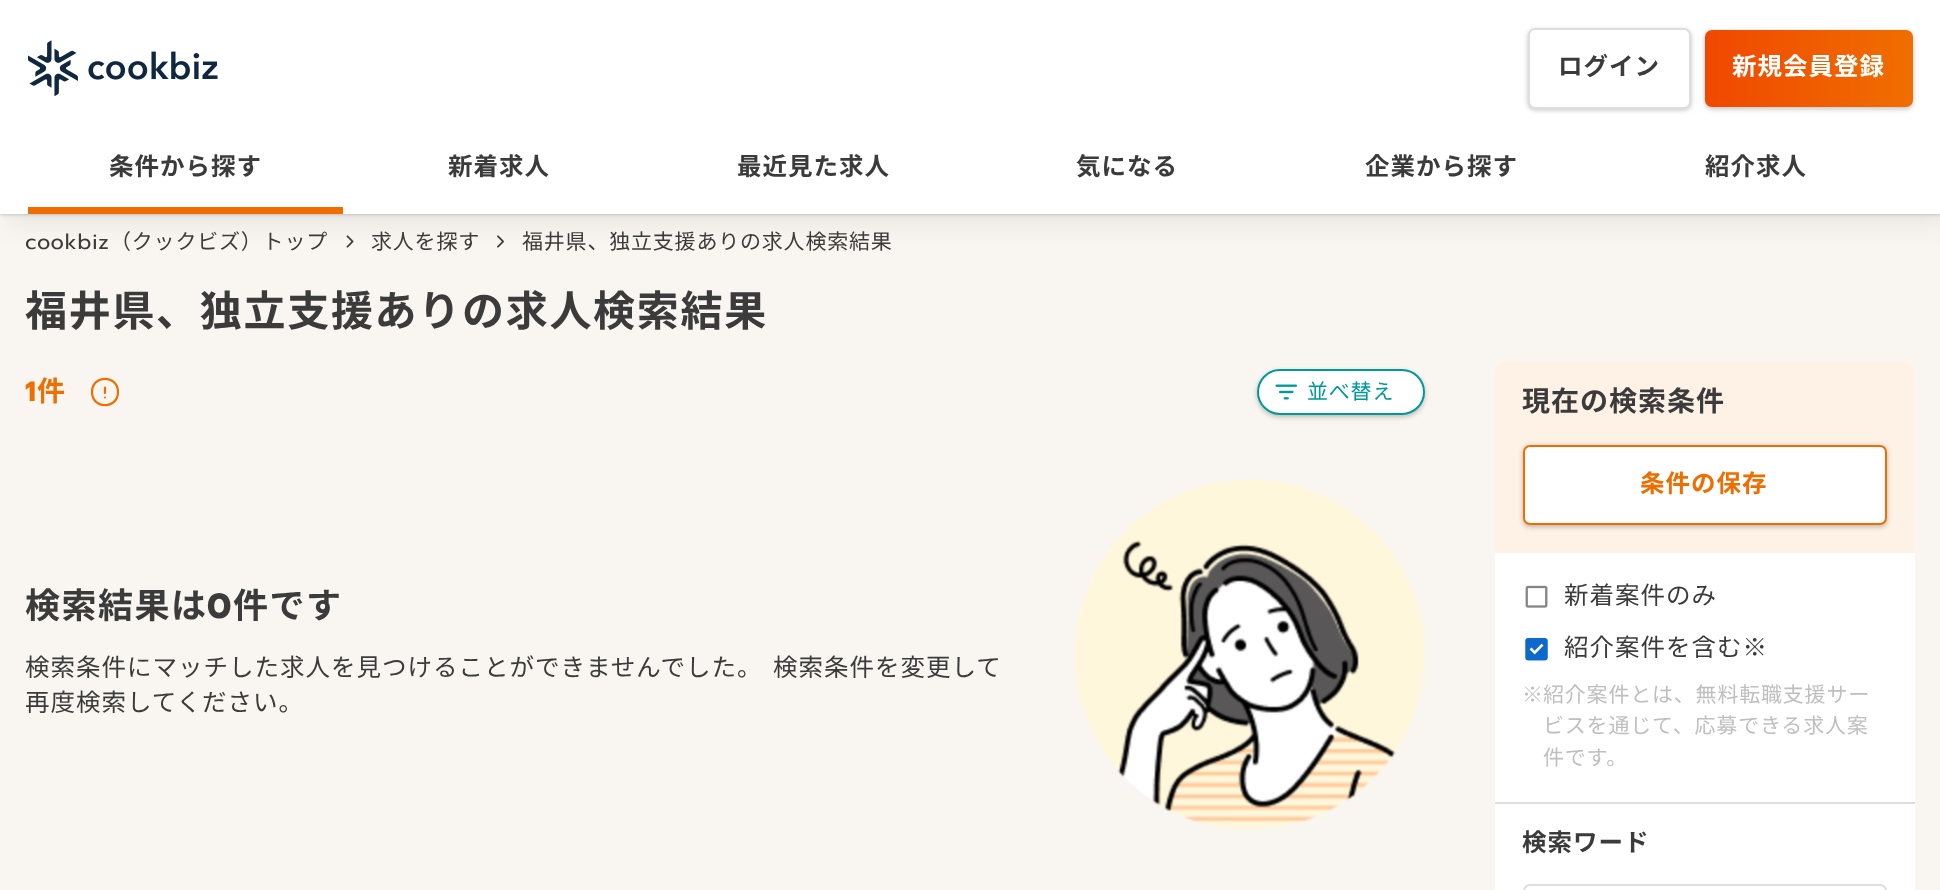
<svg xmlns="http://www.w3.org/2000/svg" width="1940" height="890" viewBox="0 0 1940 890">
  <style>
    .t1 { font: bold 24.5px Noto Sans JP; letter-spacing: 1px; fill: #3b3b3b; }
    .t2 { font: bold 24.5px Noto Sans JP; letter-spacing: 1px; fill: #fff; }
    .t3 { font: 21px Prompt; letter-spacing: 0.8px; fill: #3b3b3b; }
    .t4 { font: 21px Noto Sans JP; letter-spacing: 0.8px; fill: #3b3b3b; }
    .t5 { font: bold 42px Noto Sans JP; letter-spacing: 1.7px; fill: #3b3b3b; }
    .t6 { font: bold 28px Prompt; letter-spacing: 1px; fill: #f06e00; }
    .t7 { font: bold 28px Noto Sans JP; letter-spacing: 1px; fill: #f06e00; }
    .t8 { font: 21px Noto Sans JP; letter-spacing: 0.8px; fill: #099; }
    .t9 { font: bold 35px Noto Sans JP; letter-spacing: 1.5px; fill: #3b3b3b; }
    .t10 { font: bold 35px Prompt; letter-spacing: 1.5px; fill: #3b3b3b; }
    .t11 { font: 24.5px Noto Sans JP; letter-spacing: 1px; fill: #3b3b3b; }
    .t12 { font: bold 28px Noto Sans JP; letter-spacing: 1px; fill: #3b3b3b; }
    .t13 { font: bold 24.5px Noto Sans JP; letter-spacing: 1px; fill: #f06e00; }
    .t14 { font: 21px Noto Sans JP; letter-spacing: 0.8px; fill: #bfbfbf; }
  </style>
  <defs>
    <linearGradient id="g1" gradientUnits="userSpaceOnUse" x1="1705" y1="68" x2="1913" y2="68"><stop offset="0" stop-color="#f04800"/><stop offset="1" stop-color="#f06e00"/></linearGradient>
  </defs>
  <rect width="100%" height="100%" fill="#f9f6f1"/>
  <rect x="0" y="0" width="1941" height="214" fill="#00000040" filter="blur(2px)"/>
  <rect x="7" y="7" width="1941" height="214" fill="#00000014" filter="blur(14px)"/>
  <rect x="0" y="0" width="1940" height="214" fill="#fff"/>
  <image x="28" y="40" width="190" height="56" href="images/1.png"/>
  <rect x="1528" y="30" width="163" height="80" rx="7" fill="#0000003d" filter="blur(2.5px)"/>
  <rect x="1529" y="29" width="161" height="79" rx="6" fill="#fff" stroke="#dedede" stroke-width="2"/>
  <text x="1558" y="75" class="t1">ログイン</text>
  <rect x="1705" y="32" width="208" height="77" rx="7" fill="#0000003d" filter="blur(2.5px)"/>
  <rect x="1705" y="30" width="208" height="77" rx="7" fill="url(#g1)"/>
  <text x="1732" y="75" class="t2">新規会員登録</text>
  <rect x="28" y="207" width="315" height="7" fill="#f06e00"/>
  <text x="109" y="175" class="t1">条件から探す</text>
  <text x="448" y="175" class="t1">新着求人</text>
  <text x="737" y="175" class="t1">最近見た求人</text>
  <text x="1076" y="175" class="t1">気になる</text>
  <text x="1365" y="175" class="t1">企業から探す</text>
  <text x="1705" y="175" class="t1">紹介求人</text>
  <text x="25" y="249" class="t3">cookbiz</text>
  <text x="110" y="249" class="t4">（クックビズ）トップ</text>
  <image x="346" y="235" width="8" height="13" href="images/2.png"/>
  <text x="371" y="249" class="t4">求人を探す</text>
  <image x="497" y="235" width="7" height="13" href="images/3.png"/>
  <text x="522" y="249" class="t4">福井県、独立支援ありの求人検索結果</text>
  <text x="25" y="326" class="t5">福井県、独立支援ありの求人検索結果</text>
  <text x="25" y="401" class="t6">1</text>
  <text x="37" y="401" class="t7">件</text>
  <path d="M105 387.5V393M118 392C118 409.5 92 409.5 92 392C92 374.5 118 374.5 118 392ZM105 397.5H105Z" fill="none" stroke="#f06e00" stroke-width="2.2" stroke-linecap="round" stroke-linejoin="round"/>
  <rect x="1257" y="371" width="168" height="46" rx="23" fill="#0000003d" filter="blur(2.5px)"/>
  <rect x="1258" y="370" width="166" height="44" rx="22" fill="#fff" stroke="#099" stroke-width="2"/>
  <image x="1275" y="384" width="22" height="16" href="images/4.png"/>
  <text x="1307" y="399" class="t8">並べ替え</text>
  <text x="25" y="618" class="t9">検索結果は</text>
  <text x="207" y="618" class="t10">0</text>
  <text x="233" y="618" class="t9">件です</text>
  <text x="25" y="676" word-spacing="4" class="t11">検索条件にマッチした求人を見つけることができませんでした。 検索条件を変更して</text>
  <text x="25" y="711" class="t11">再度検索してください。</text>
  <image x="1075" y="480" width="350" height="350" href="images/5.png"/>
  <path d="M1506 361H1904C1910 361 1915 366 1915 372V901H1495V372C1495 366 1500 361 1506 361Z" fill="#fff"/>
  <path d="M1506 361H1904C1910 361 1915 366 1915 372V553H1495V372C1495 366 1500 361 1506 361Z" fill="#fef1e6"/>
  <text x="1522" y="411" class="t12">現在の検索条件</text>
  <rect x="1523" y="446" width="364" height="81" rx="7" fill="#0000003d" filter="blur(2.5px)"/>
  <rect x="1524" y="446" width="362" height="78" rx="6" fill="#fff" stroke="#f06e00" stroke-width="2"/>
  <text x="1640" y="492" class="t13">条件の保存</text>
  <rect x="1495" y="802" width="420" height="2" fill="#dedede"/>
  <image x="1525" y="585" width="23" height="23" href="images/6.png"/>
  <text x="1564" y="604" class="t11">新着案件のみ</text>
  <image x="1525" y="638" width="23" height="23" href="images/7.png"/>
  <text x="1564" y="656" class="t11">紹介案件を含む※</text>
  <text x="1522" y="702" class="t14">※</text>
  <text x="1543" y="702" class="t14">紹介案件とは、無料転職支援サー</text>
  <text x="1543" y="733" class="t14">ビスを通じて、応募できる求人案</text>
  <text x="1543" y="765" class="t14">件です。</text>
  <text x="1522" y="851" class="t1">検索ワード</text>
  <rect x="1524" y="885" width="362" height="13" rx="6" fill="none" stroke="#dedede" stroke-width="2"/>
</svg>
